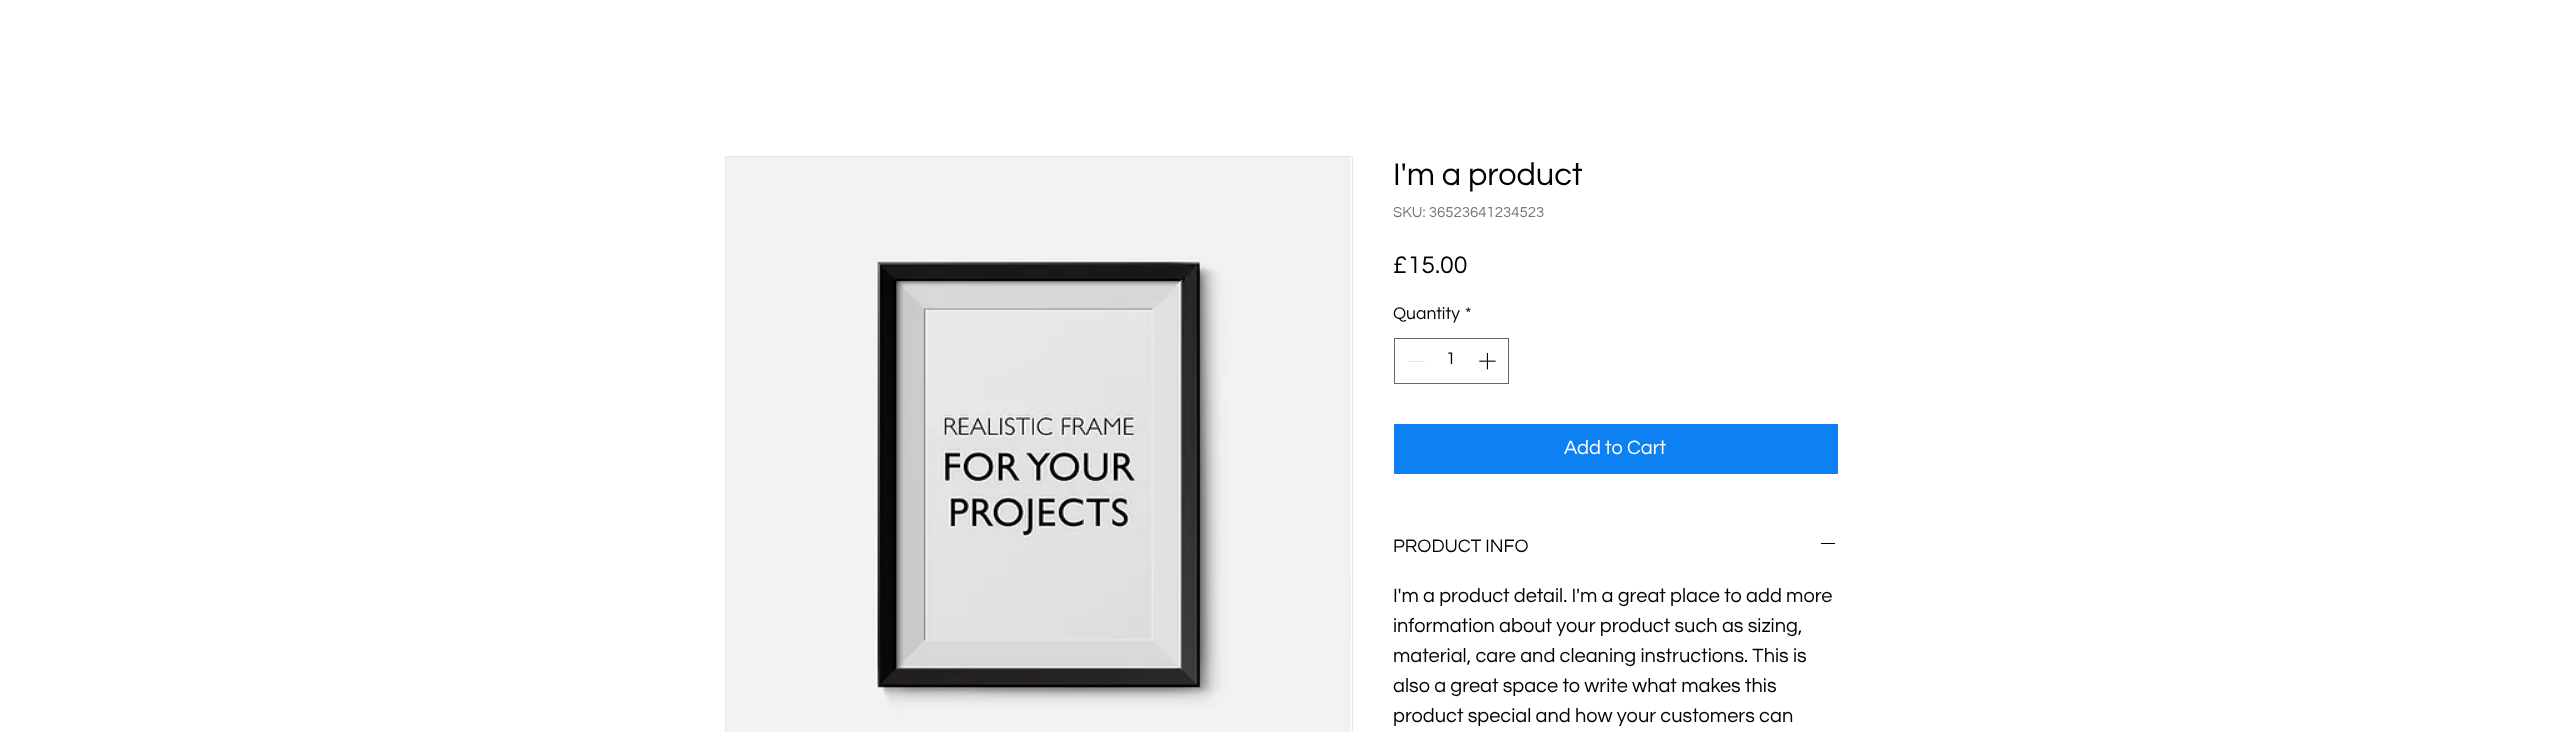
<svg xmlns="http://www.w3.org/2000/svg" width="2561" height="732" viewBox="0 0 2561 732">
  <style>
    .t1 { font: 32.5px Questrial; fill: #000; }
    .t2 { font: 15px Questrial; fill: #757575; }
    .t3 { font: 25px Questrial; fill: #000; }
    .t4 { font: 17.5px Questrial; fill: #000; }
    .t5 { font: 20px Questrial; fill: #fff; }
    .t6 { font: 18.75px Questrial; fill: #000; }
    .t7 { font: 20px Questrial; fill: #000; }
  </style>
  <rect width="100%" height="100%" fill="#fff"/>
  <rect x="725.5" y="156.5" width="627" height="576" fill="none" stroke="#e8e6e6"/>
  <image x="726" y="157" width="625" height="575" href="images/1.png"/>
  <text x="1393" y="185" class="t1">I'm a product</text>
  <text x="1393" y="217" class="t2">SKU: 36523641234523</text>
  <text x="1393" y="273" class="t3">£15.00</text>
  <text x="1393" y="319" class="t4">Quantity</text>
  <text x="1465" y="319" class="t4">*</text>
  <rect x="1394.5" y="338.5" width="114" height="45" fill="none" stroke="#666"/>
  <rect x="1408" y="361" width="17" height="1" fill="#e3e3e3"/>
  <text x="1446" y="364" class="t4">1</text>
  <image x="1479" y="352" width="17" height="18" href="images/2.png"/>
  <rect x="1394" y="424" width="444" height="50" fill="#0d80f2"/>
  <text x="1564" y="454" class="t5">Add to Cart</text>
  <text x="1393" y="552" class="t6">PRODUCT INFO</text>
  <rect x="1821" y="543" width="14" height="1" fill="#000"/>
  <text x="1393" y="602" class="t7">I'm a product detail. I'm a great place to add more</text>
  <text x="1393" y="632" class="t7">information about your product such as sizing,</text>
  <text x="1393" y="662" class="t7">material, care and cleaning instructions. This is</text>
  <text x="1393" y="692" class="t7">also a great space to write what makes this</text>
  <text x="1393" y="722" class="t7">product special and how your customers can</text>
</svg>
